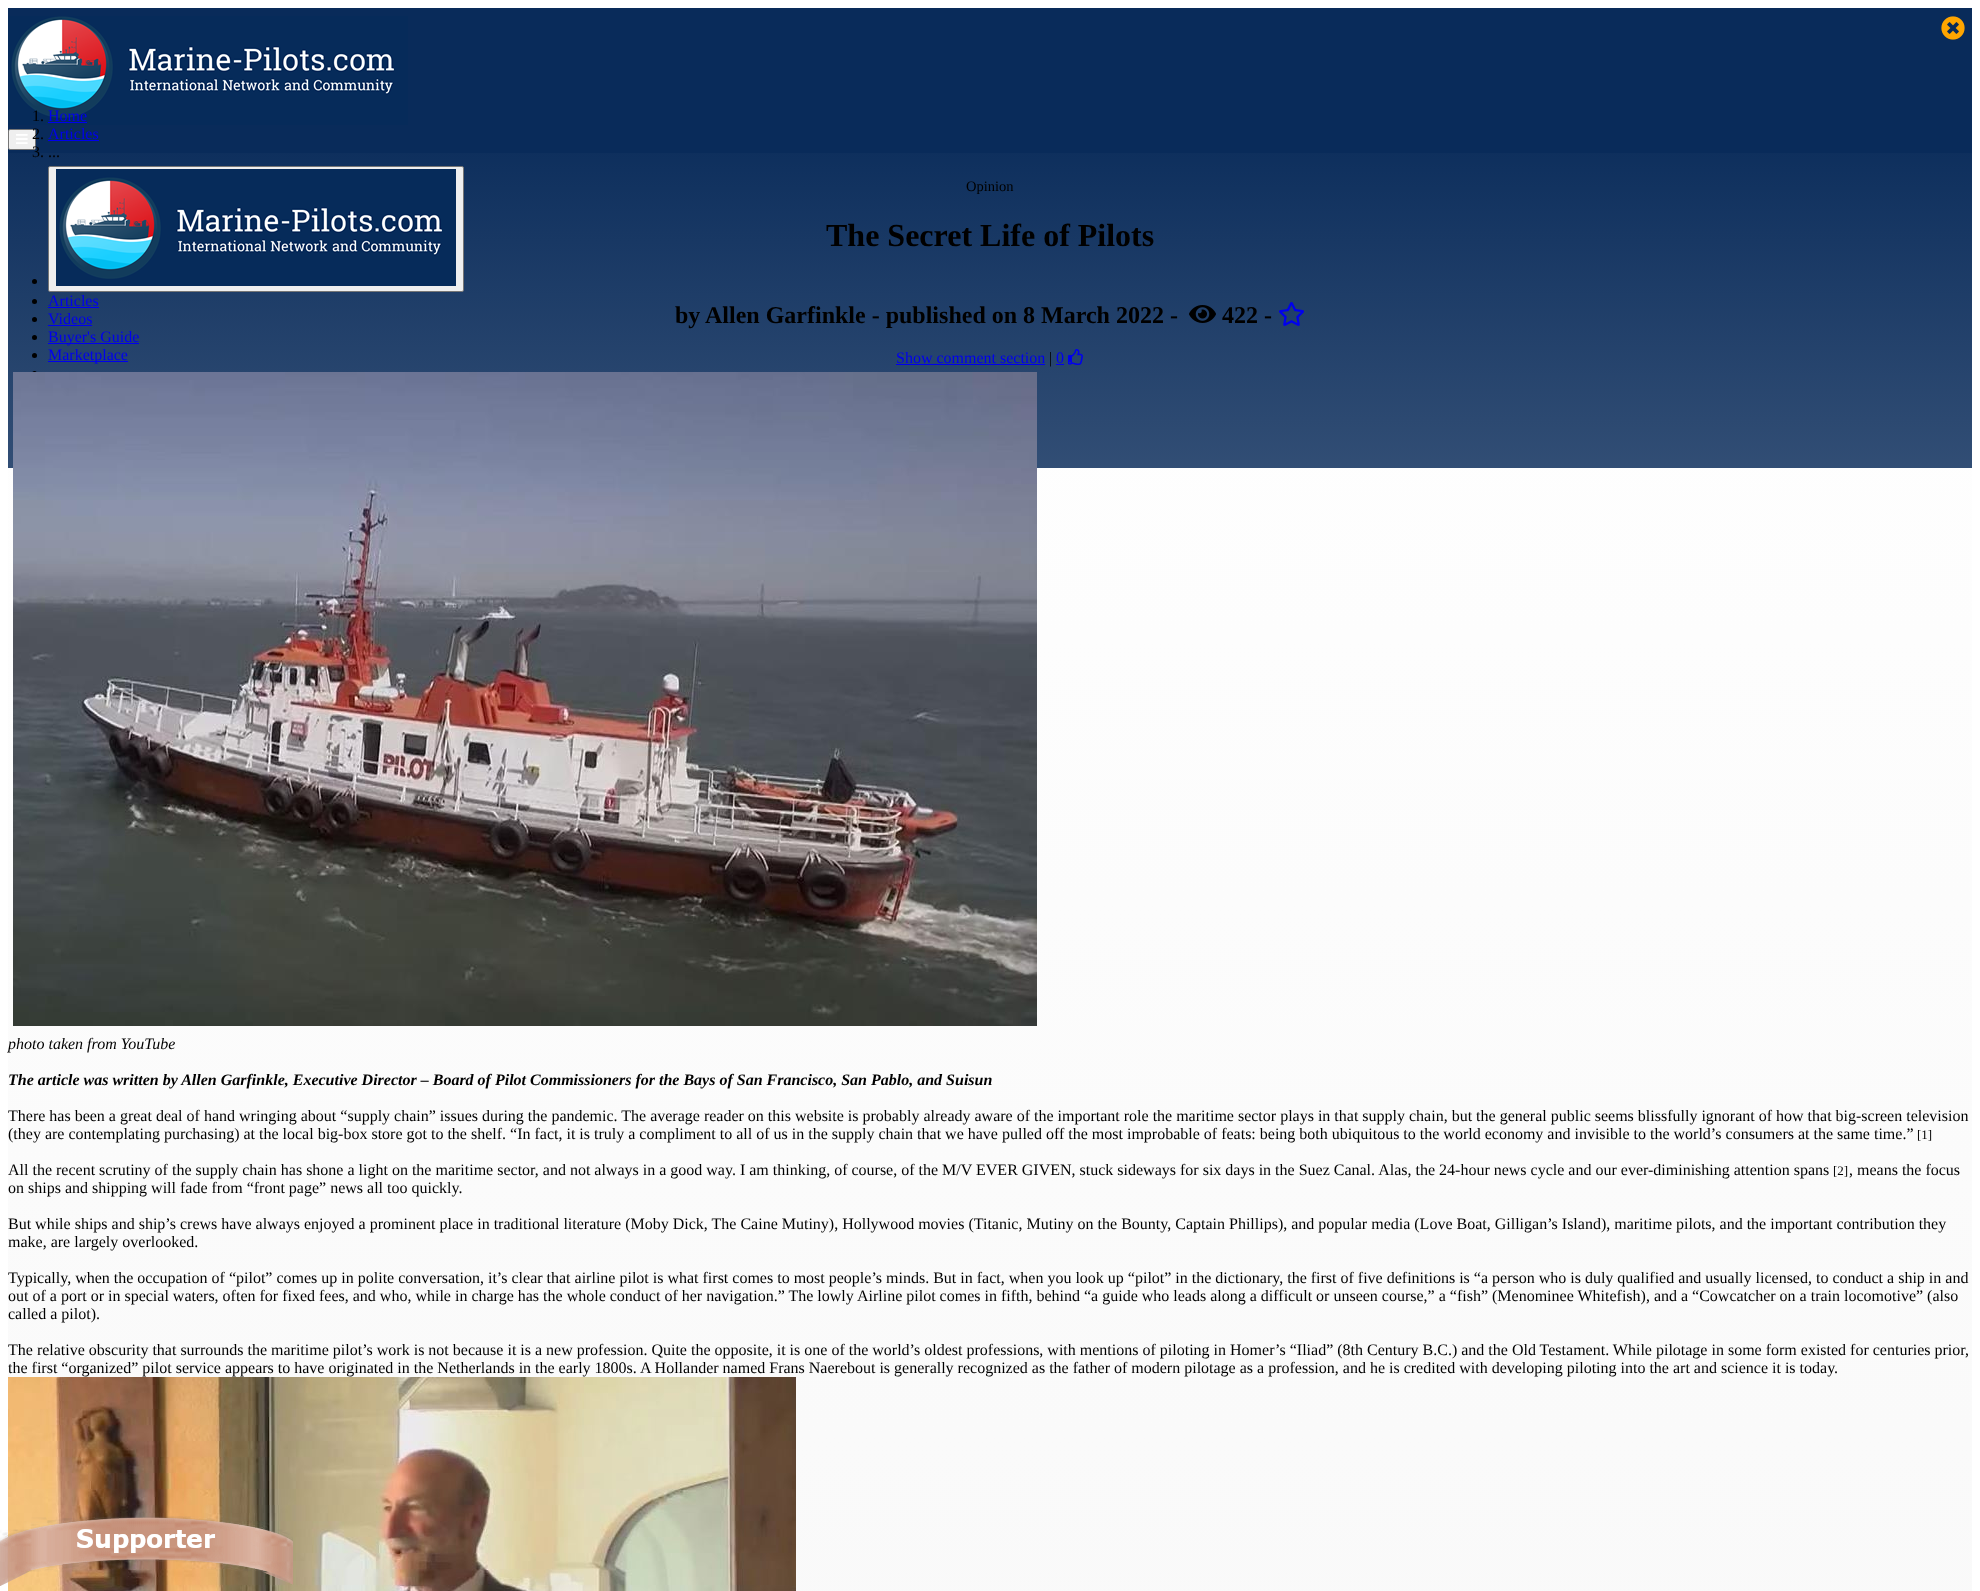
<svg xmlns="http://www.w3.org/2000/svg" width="1980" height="1591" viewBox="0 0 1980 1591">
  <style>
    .t1 { font: 16px Liberation Serif; fill: #000; }
    .t2 { font: 16px Liberation Serif; fill: #00e; }
    .t3 { font: 14.5px Liberation Serif; fill: #000; }
    .t4 { font: bold 32px Liberation Serif; fill: #000; }
    .t5 { font: bold 24px Liberation Serif; fill: #000; }
    .t6 { font: italic 16px Liberation Serif; fill: #000; }
    .t7 { font: italic bold 16px Liberation Serif; fill: #000; }
    .t8 { font: 13px Liberation Serif; fill: #000; }
  </style>
  <defs>
    <linearGradient id="g1" gradientUnits="userSpaceOnUse" x1="990" y1="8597" x2="990" y2="107"><stop offset="0.75" stop-color="#f7f7f7"/><stop offset="1" stop-color="#f7f7f7" stop-opacity="0"/></linearGradient>
  </defs>
  <rect width="100%" height="100%" fill="#fff"/>
  <rect x="8" y="8" width="1964" height="460" fill="#092b5a"/>
  <rect x="8" y="153" width="1964" height="1438" fill="url(#g1)"/>
  <image x="8" y="16" width="400" height="109" href="images/7.png"/>
  <text x="32" y="121" class="t1">1.</text>
  <text x="48" y="121" class="t2">Home</text>
  <rect x="48" y="122" width="39" height="1" fill="#00e"/>
  <rect x="8.5" y="129.5" width="27" height="20" rx="1.5" fill="#efefef" stroke="#767676"/>
  <text x="32" y="139" class="t1">2.</text>
  <text x="48" y="139" class="t2">Articles</text>
  <rect x="48" y="140" width="51" height="1" fill="#00e"/>
  <text x="32" y="157" class="t1">3. ...</text>
  <text x="966" y="191" class="t3">Opinion</text>
  <text x="826" y="246" class="t4">The Secret Life of Pilots</text>
  <text x="675" y="323" class="t5">by</text>
  <text x="705" y="323" class="t5">Allen Garfinkle - published on 8 March 2022 -</text>
  <image x="1189" y="305" width="27" height="18" href="images/1.png"/>
  <text x="1222" y="323" class="t5">422 -</text>
  <image x="1279" y="302" width="25" height="24" href="images/2.png"/>
  <text x="896" y="363" class="t2">Show comment section</text>
  <rect x="896" y="364" width="149" height="1" fill="#00e"/>
  <text x="1049" y="363" class="t1">|</text>
  <text x="1056" y="363" class="t2">0</text>
  <rect x="1056" y="364" width="8" height="1" fill="#00e"/>
  <image x="1068" y="349" width="15" height="16" href="images/3.png"/>
  <circle cx="34.5" cy="373.5" r="2.5" fill="#000"/>
  <image x="13" y="372" width="1024" height="654" href="images/4.png"/>
  <text x="8" y="1049" class="t6">photo taken from YouTube</text>
  <text x="8" y="1085" class="t7">The article was written by Allen Garfinkle, Executive Director – Board of Pilot Commissioners for the Bays of San Francisco, San Pablo, and Suisun</text>
  <text x="8" y="1121" class="t1">There has been a great deal of hand wringing about “supply chain” issues during the pandemic. The average reader on this website is probably already aware of the important role the maritime sector plays in that supply chain, but the general public seems blissfully ignorant of how that big-screen television</text>
  <text x="8" y="1139" class="t1">(they are contemplating purchasing) at the local big-box store got to the shelf. “In fact, it is truly a compliment to all of us in the supply chain that we have pulled off the most improbable of feats: being both ubiquitous to the world economy and invisible to the world’s consumers at the same time.”</text>
  <text x="1917" y="1139" class="t8">[1]</text>
  <text x="8" y="1175" class="t1">All the recent scrutiny of the supply chain has shone a light on the maritime sector, and not always in a good way. I am thinking, of course, of the M/V EVER GIVEN, stuck sideways for six days in the Suez Canal. Alas, the 24-hour news cycle and our ever-diminishing attention spans</text>
  <text x="1833" y="1175" class="t8">[2]</text>
  <text x="1849" y="1175" class="t1">, means the focus</text>
  <text x="8" y="1193" class="t1">on ships and shipping will fade from “front page” news all too quickly.</text>
  <text x="8" y="1229" class="t1">But while ships and ship’s crews have always enjoyed a prominent place in traditional literature (Moby Dick, The Caine Mutiny), Hollywood movies (Titanic, Mutiny on the Bounty, Captain Phillips), and popular media (Love Boat, Gilligan’s Island), maritime pilots, and the important contribution they</text>
  <text x="8" y="1247" class="t1">make, are largely overlooked.</text>
  <text x="8" y="1283" class="t1">Typically, when the occupation of “pilot” comes up in polite conversation, it’s clear that airline pilot is what first comes to most people’s minds. But in fact, when you look up “pilot” in the dictionary, the first of five definitions is “a person who is duly qualified and usually licensed, to conduct a ship in and</text>
  <text x="8" y="1301" class="t1">out of a port or in special waters, often for fixed fees, and who, while in charge has the whole conduct of her navigation.” The lowly Airline pilot comes in fifth, behind “a guide who leads along a difficult or unseen course,” a “fish” (Menominee Whitefish), and a “Cowcatcher on a train locomotive” (also</text>
  <text x="8" y="1319" class="t1">called a pilot).</text>
  <text x="8" y="1355" class="t1">The relative obscurity that surrounds the maritime pilot’s work is not because it is a new profession. Quite the opposite, it is one of the world’s oldest professions, with mentions of piloting in Homer’s “Iliad” (8th Century B.C.) and the Old Testament. While pilotage in some form existed for centuries prior,</text>
  <text x="8" y="1373" class="t1">the first “organized” pilot service appears to have originated in the Netherlands in the early 1800s. A Hollander named Frans Naerebout is generally recognized as the father of modern pilotage as a profession, and he is credited with developing piloting into the art and science it is today.</text>
  <image x="8" y="1377" width="788" height="214" href="images/5.png"/>
  <image x="0" y="1516" width="293" height="70" href="images/6.png"/>
  <image x="16" y="134" width="12" height="10" href="images/8.png"/>
  <circle cx="34.5" cy="281.5" r="2.5" fill="#000"/>
  <rect x="48.5" y="166.5" width="415" height="125" rx="1.5" fill="#efefef" stroke="#767676"/>
  <image x="1941" y="16" width="24" height="24" href="images/9.png"/>
  <image x="56" y="169" width="400" height="117" href="images/10.png"/>
  <circle cx="34.5" cy="301.5" r="2.5" fill="#000"/>
  <text x="48" y="306" class="t2">Articles</text>
  <rect x="48" y="307" width="51" height="1" fill="#00e"/>
  <circle cx="34.5" cy="319.5" r="2.5" fill="#000"/>
  <text x="48" y="324" class="t2">Videos</text>
  <rect x="48" y="325" width="44" height="1" fill="#00e"/>
  <circle cx="34.5" cy="337.5" r="2.5" fill="#000"/>
  <rect x="48" y="343" width="91" height="1" fill="#00e"/>
  <text x="48" y="342" class="t2">Buyer's Guide</text>
  <circle cx="34.5" cy="355.5" r="2.5" fill="#000"/>
  <rect x="48" y="361" width="80" height="1" fill="#00e"/>
  <text x="48" y="360" class="t2">Marketplace</text>
</svg>
